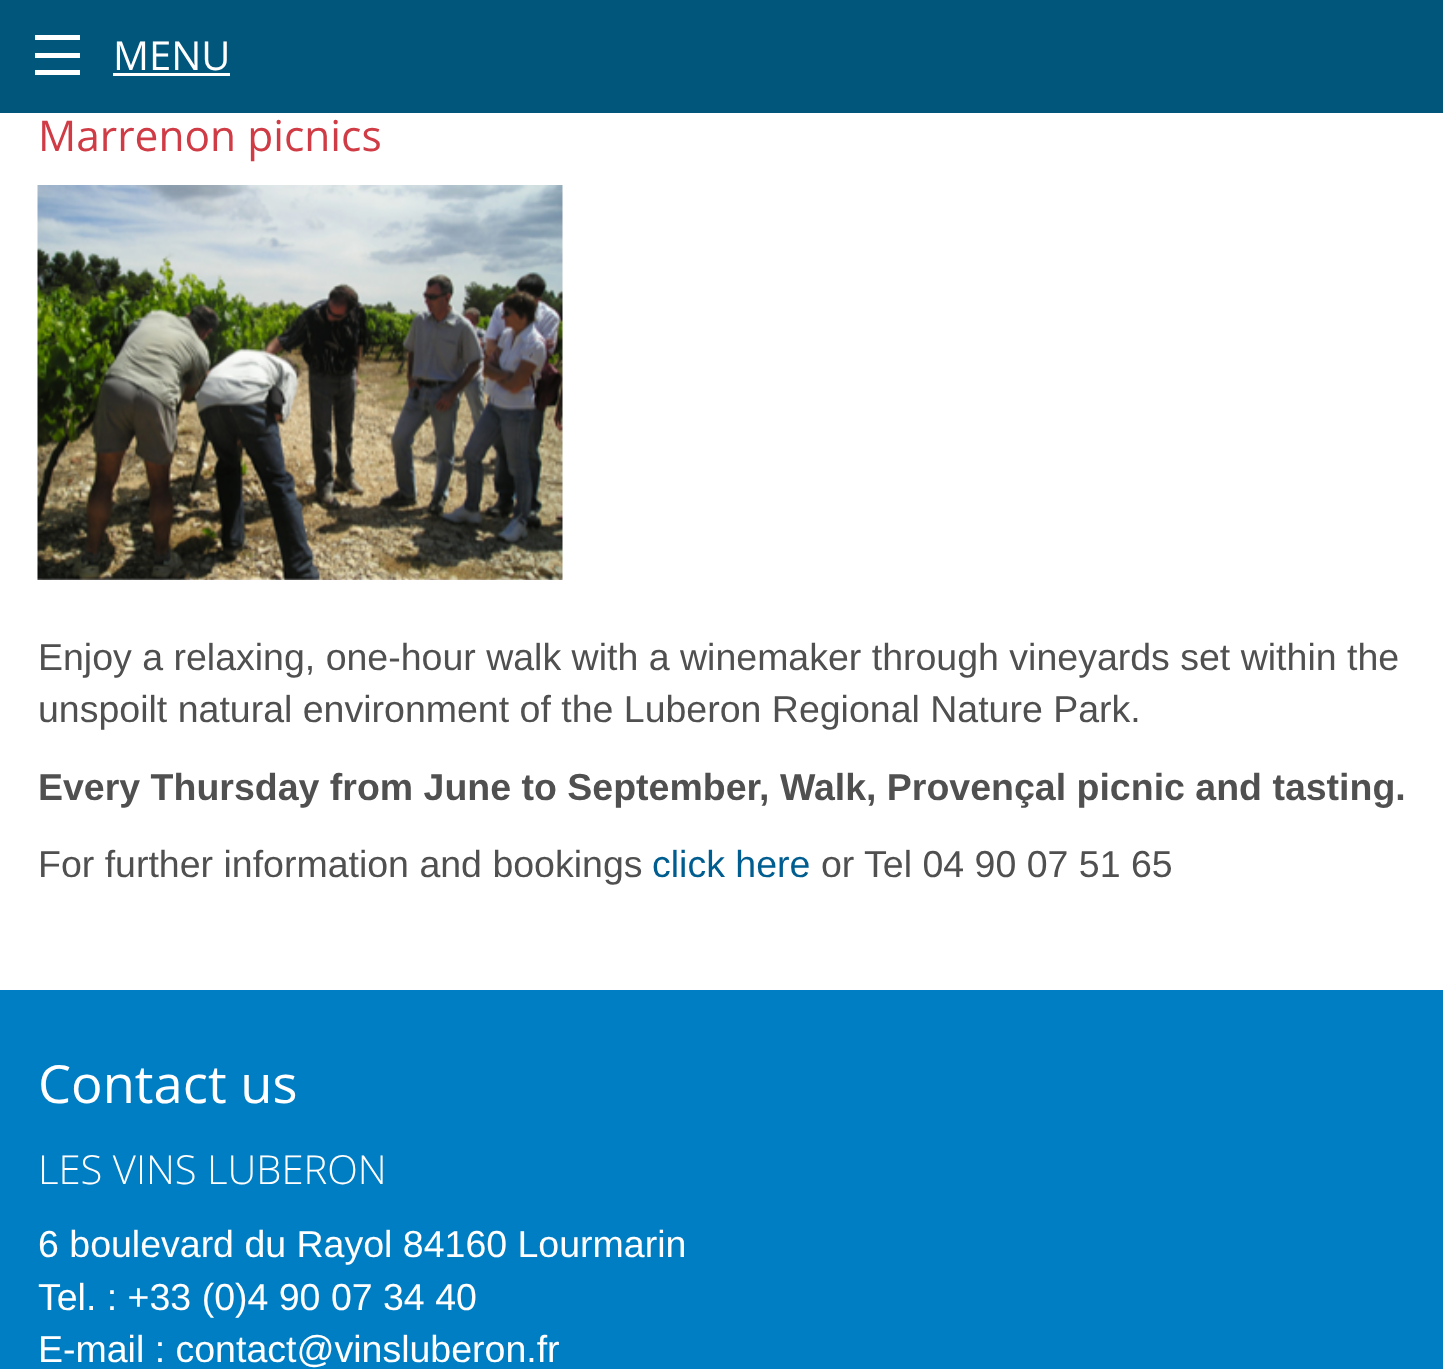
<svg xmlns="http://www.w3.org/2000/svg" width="1443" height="1369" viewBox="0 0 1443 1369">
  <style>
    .t1 { font: 40px Open Sans; fill: #fff; }
    .t2 { font: 42.5px Open Sans; fill: #d03c45; }
    .t3 { font: 37.5px Liberation Sans; fill: #505050; }
    .t4 { font: bold 37.5px Liberation Sans; fill: #505050; }
    .t5 { font: 37.5px Liberation Sans; fill: #005d90; }
    .t6 { font: 52.5px Open Sans; fill: #fff; }
    .t7 { font: 300 40px Open Sans; fill: #fff; }
    .t8 { font: 37.5px Liberation Sans; fill: #fff; }
  </style>
  <rect width="100%" height="100%" fill="#fff"/>
  <rect x="0" y="0" width="1443" height="113" fill="#00567b"/>
  <rect x="35" y="70" width="45" height="5" fill="#fff"/>
  <rect x="35" y="53" width="45" height="5" fill="#fff"/>
  <rect x="35" y="35" width="45" height="5" fill="#fff"/>
  <text x="113" y="70" class="t1">MENU</text>
  <rect x="113" y="73" width="117" height="3" fill="#fff"/>
  <text x="38" y="151" class="t2">Marrenon picnics</text>
  <image x="37" y="185" width="526" height="395" href="images/1.png"/>
  <text x="38" y="670" class="t3">Enjoy a relaxing, one-hour walk with a winemaker through vineyards set within the</text>
  <text x="38" y="722" class="t3">unspoilt natural environment of the Luberon Regional Nature Park.</text>
  <text x="38" y="800" class="t4">Every Thursday from June to September, Walk, Provençal picnic and tasting.</text>
  <text x="38" y="877" class="t3">For further information and bookings</text>
  <text x="652" y="877" class="t5">click here</text>
  <text x="821" y="877" class="t3">or Tel 04 90 07 51 65</text>
  <rect x="0" y="990" width="1443" height="379" fill="#007ec3"/>
  <text x="38" y="1103" class="t6">Contact us</text>
  <text x="38" y="1184" class="t7">LES VINS LUBERON</text>
  <text x="38" y="1257" class="t8">6 boulevard du Rayol 84160 Lourmarin</text>
  <text x="38" y="1310" class="t8">Tel. : +33 (0)4 90 07 34 40</text>
  <text x="38" y="1362" class="t8">E-mail : contact@vinsluberon.fr</text>
</svg>
